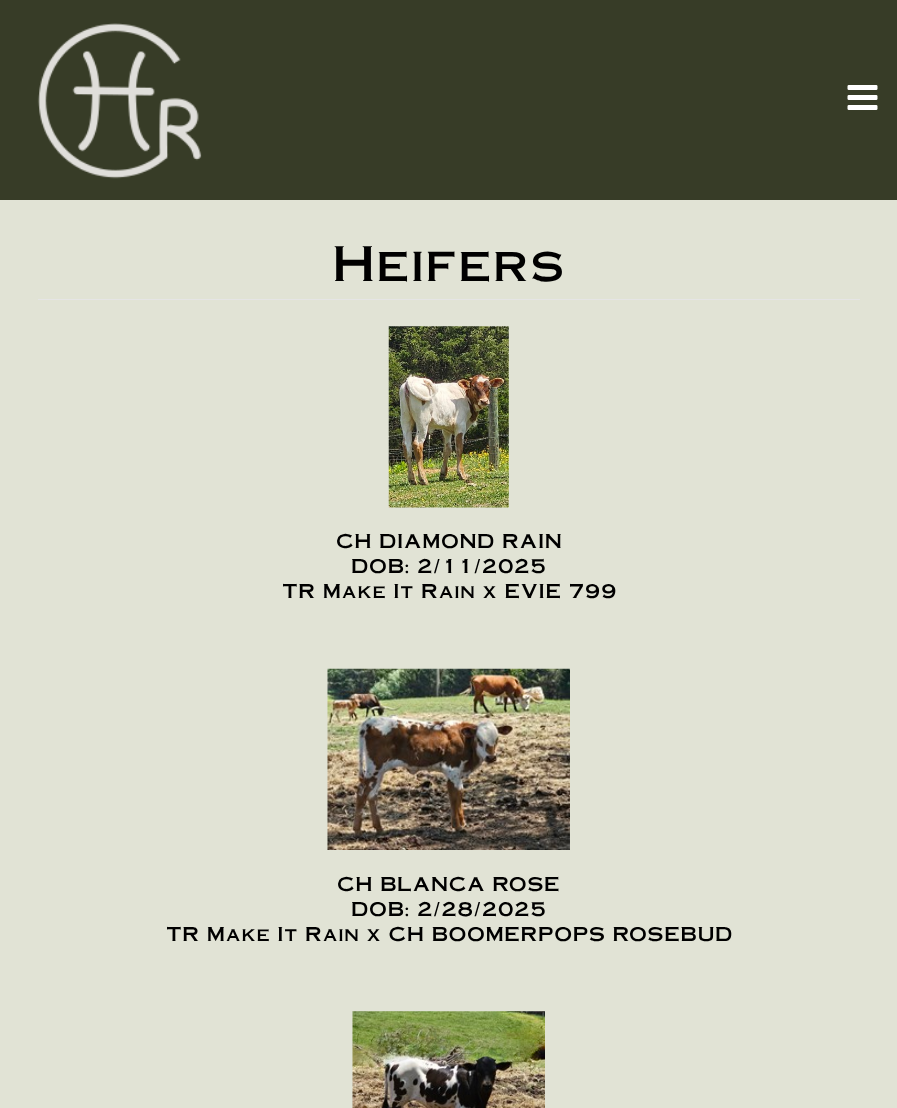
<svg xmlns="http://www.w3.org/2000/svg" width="897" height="1108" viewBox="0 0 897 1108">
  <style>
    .t1 { font: 500 43.75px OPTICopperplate; letter-spacing: 0.2px; fill: #000; }
    .t2 { font: 500 17.5px OPTICopperplate; letter-spacing: 0.2px; fill: #000; }
  </style>
  <rect width="100%" height="100%" fill="#e1e3d5"/>
  <rect x="0" y="0" width="897" height="200" fill="#373c27"/>
  <image x="37" y="23" width="165" height="156" href="images/1.png"/>
  <image x="847" y="85" width="31" height="25" href="images/2.png"/>
  <text x="332" y="281" class="t1">Heifers</text>
  <rect x="38" y="299" width="822" height="1" fill="#e5e5e5"/>
  <image x="388" y="326" width="121" height="182" href="images/3.png"/>
  <text x="336" y="548" class="t2">CH DIAMOND RAIN</text>
  <text x="351" y="573" class="t2">DOB: 2/11/2025</text>
  <text x="282" y="598" class="t2">TR Make It Rain x EVIE 799</text>
  <image x="327" y="668" width="243" height="182" href="images/4.png"/>
  <text x="337" y="891" class="t2">CH BLANCA ROSE</text>
  <text x="351" y="916" class="t2">DOB: 2/28/2025</text>
  <text x="166" y="941" class="t2">TR Make It Rain x CH BOOMERPOPS ROSEBUD</text>
  <image x="352" y="1011" width="193" height="97" href="images/5.png"/>
</svg>
